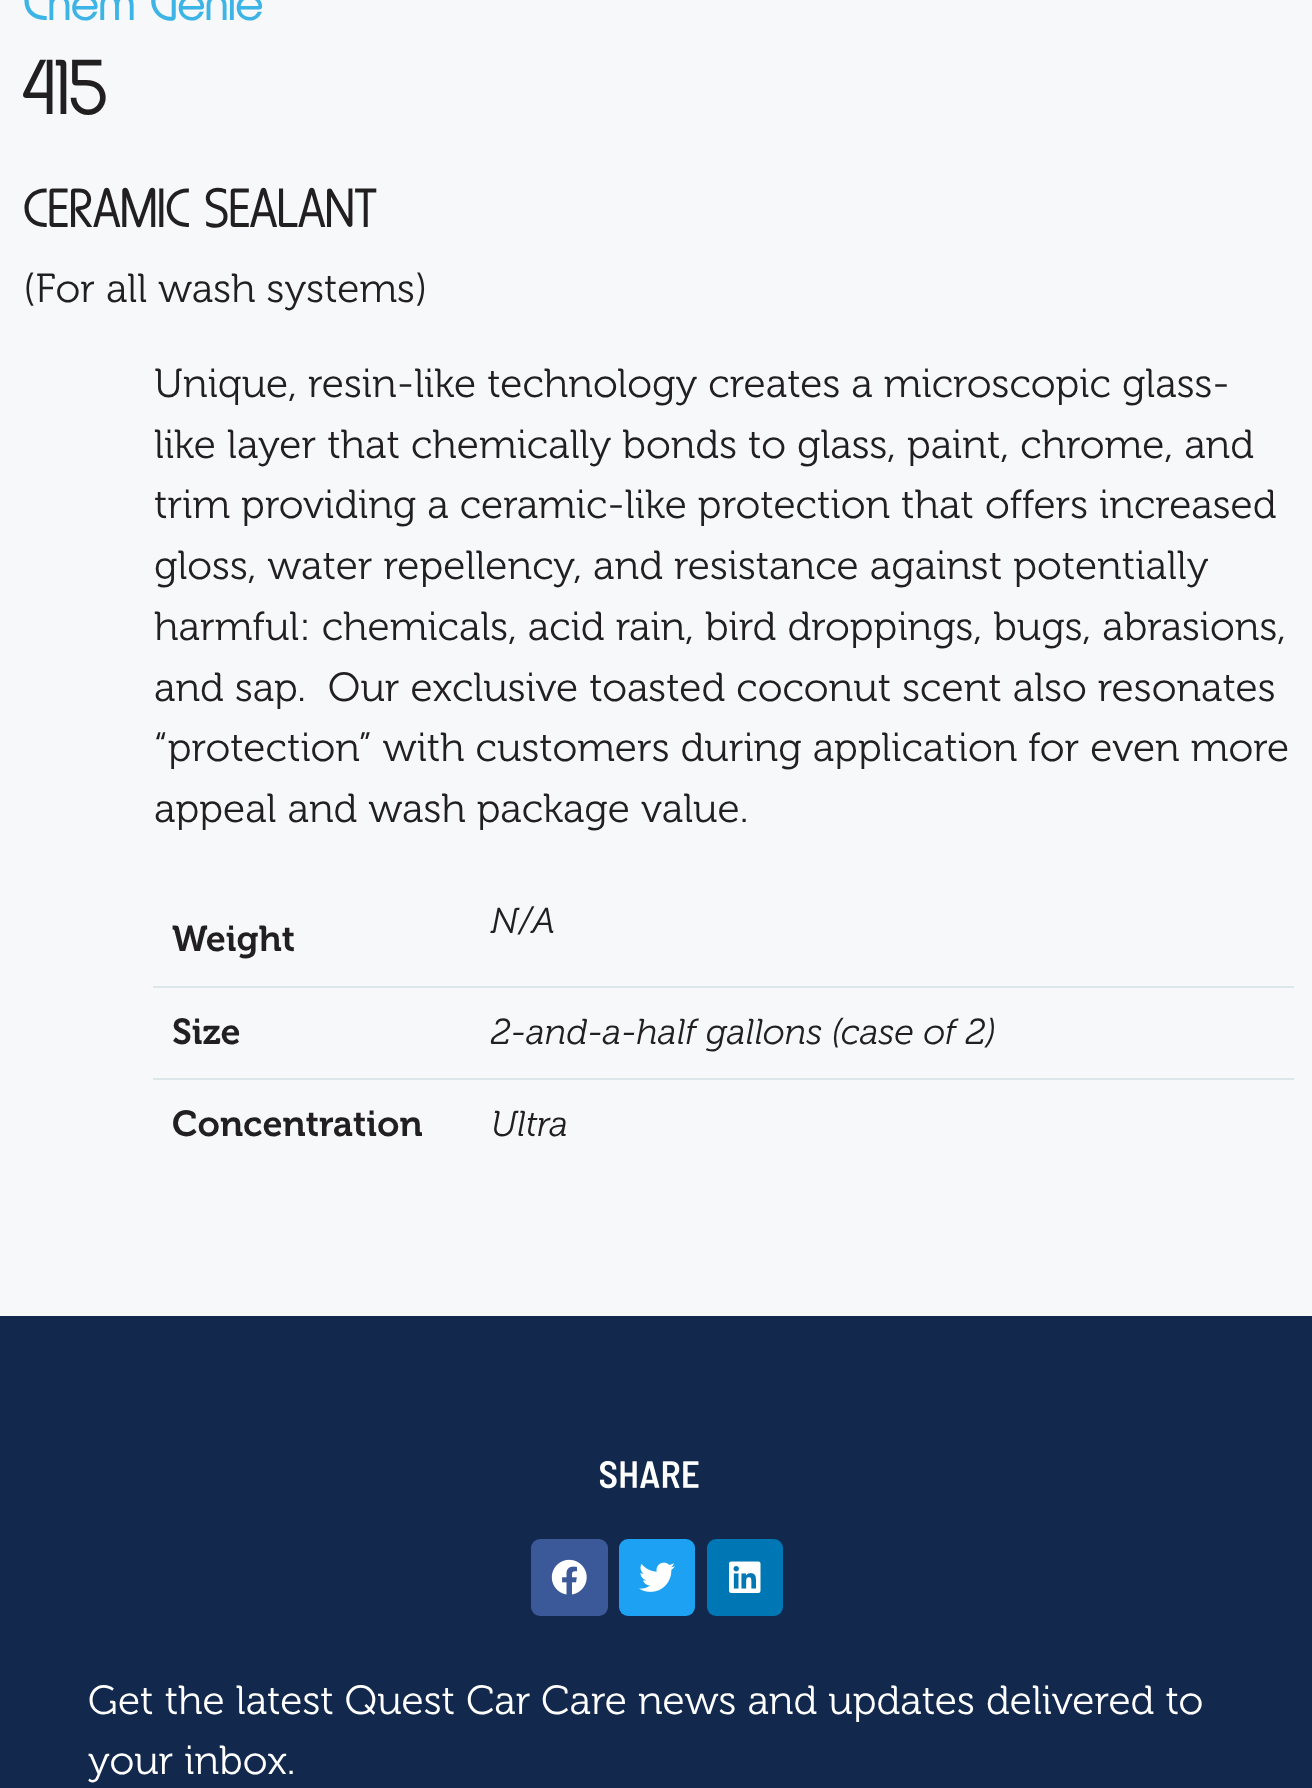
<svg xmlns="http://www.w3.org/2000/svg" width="1312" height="1788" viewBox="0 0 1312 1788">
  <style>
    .t1 { font: 57.5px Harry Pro; fill: #3cb4e5; }
    .t2 { font: 81px Harry Pro; fill: #221f20; }
    .t3 { font: 57.5px Harry Pro; fill: #221f20; }
    .t4 { font: 300 40.5px 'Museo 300'; fill: #221f20; }
    .t5 { font: italic 300 36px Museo; fill: #221f20; }
    .t6 { font: 600 36px 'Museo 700'; fill: #221f20; }
    .t7 { font: 300 40.5px 'Museo 300'; fill: #fff; }
  </style>
  <rect width="100%" height="100%" fill="#f6f8f9"/>
  <text x="23" y="20" class="t1">Chem Genie</text>
  <text x="23" y="114" class="t2">415</text>
  <text x="23" y="227" class="t3">CERAMIC SEALANT</text>
  <text x="23" y="302" class="t4">(For all wash systems)</text>
  <text x="154" y="397" class="t4">Unique, resin-like technology creates a microscopic glass-</text>
  <text x="154" y="458" class="t4">like layer that chemically bonds to glass, paint, chrome, and</text>
  <text x="154" y="518" class="t4">trim providing a ceramic-like protection that offers increased</text>
  <text x="154" y="579" class="t4">gloss, water repellency, and resistance against potentially</text>
  <text x="154" y="640" class="t4">harmful: chemicals, acid rain, bird droppings, bugs, abrasions,</text>
  <text x="154" y="701" class="t4" xml:space="preserve">and sap.  Our exclusive toasted coconut scent also resonates</text>
  <text x="154" y="761" class="t4">“protection” with customers during application for even more</text>
  <text x="154" y="822" class="t4">appeal and wash package value.</text>
  <rect x="153" y="986" width="1141" height="2" fill="#dde6ea"/>
  <text x="491" y="933" class="t5">N/A</text>
  <text x="172" y="951" class="t6">Weight</text>
  <rect x="153" y="1078" width="1141" height="2" fill="#dde6ea"/>
  <text x="172" y="1044" class="t6">Size</text>
  <text x="491" y="1044" class="t5">2-and-a-half gallons (case of 2)</text>
  <text x="172" y="1136" class="t6">Concentration</text>
  <text x="491" y="1136" class="t5">Ultra</text>
  <rect x="0" y="1316" width="1312" height="472" fill="#12284c"/>
  <image x="599" y="1461" width="100" height="28" href="images/1.png"/>
  <rect x="531" y="1539" width="77" height="77" rx="9" fill="#3b5998"/>
  <image x="551" y="1559" width="36" height="36" href="images/2.png"/>
  <rect x="619" y="1539" width="76" height="77" rx="9" fill="#1da1f2"/>
  <image x="639" y="1562" width="36" height="30" href="images/3.png"/>
  <rect x="707" y="1539" width="76" height="77" rx="9" fill="#0077b5"/>
  <image x="729" y="1561" width="32" height="32" href="images/4.png"/>
  <text x="88" y="1714" class="t7">Get the latest Quest Car Care news and updates delivered to</text>
  <text x="88" y="1774" class="t7">your inbox.</text>
</svg>
